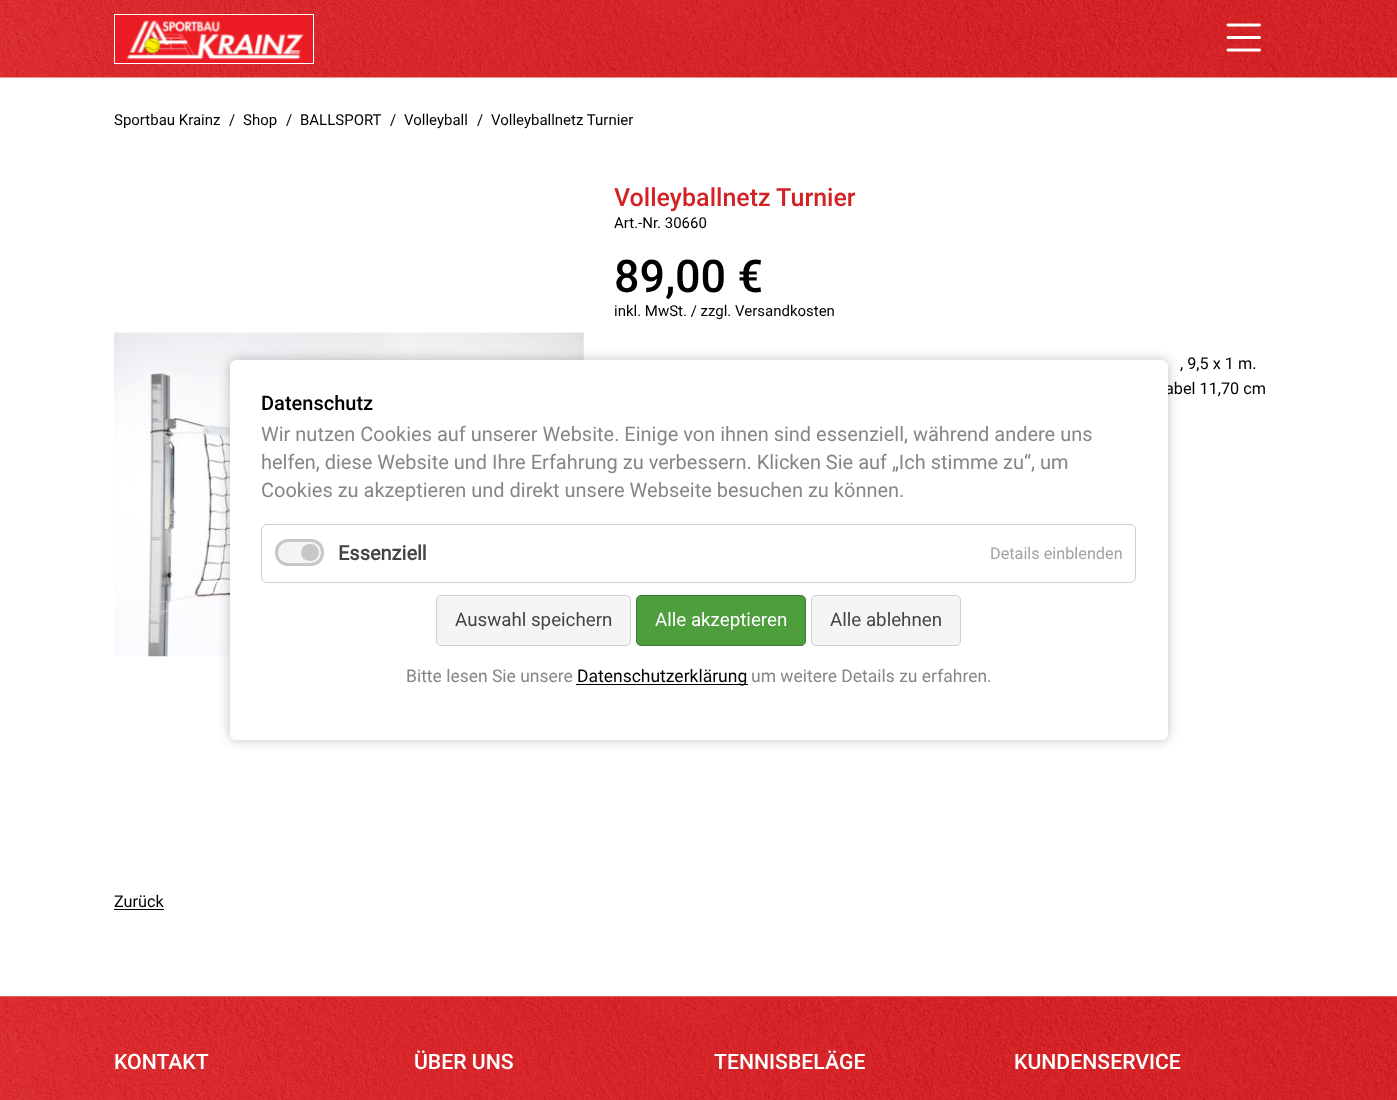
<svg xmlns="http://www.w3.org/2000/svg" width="1397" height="1100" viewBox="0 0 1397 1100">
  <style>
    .t1 { font: 15px Roboto; fill: #000; }
    .t2 { font: 500 25px Roboto; fill: #d32225; }
    .t3 { font: 500 45px Roboto; fill: #000; }
    .t4 { font: 16.25px Roboto; fill: #000; }
    .t5 { font: 500 21.25px Roboto; fill: #fff; }
    .t6 { font: 500 20px Roboto; fill: #000; }
    .t7 { font: 20px Roboto; fill: #868686; }
    .t8 { font: bold 20px Roboto; fill: #444; }
    .t9 { font: 16.25px Roboto; fill: #a2a2a2; }
    .t10 { font: 18.75px Roboto; fill: #444; }
    .t11 { font: 18.75px Roboto; fill: #fff; }
    .t12 { font: 17.5px Roboto; fill: #868686; }
    .t13 { font: 17.5px Roboto; fill: #000; }
  </style>
  <rect width="100%" height="100%" fill="#fff"/>
  <image x="0" y="0" width="1397" height="78" href="images/1.png"/>
  <image x="115" y="15" width="198" height="48" href="images/2.png"/>
  <rect x="114.5" y="14.5" width="199" height="49" fill="none" stroke="#fff"/>
  <image x="1226" y="23" width="35" height="29" href="images/3.png"/>
  <text x="114" y="125" class="t1">Sportbau Krainz</text>
  <text x="229" y="125" class="t1">/</text>
  <text x="243" y="125" class="t1">Shop</text>
  <text x="286" y="125" class="t1">/</text>
  <text x="300" y="125" class="t1">BALLSPORT</text>
  <text x="390" y="125" class="t1">/</text>
  <text x="404" y="125" class="t1">Volleyball</text>
  <text x="477" y="125" class="t1">/</text>
  <text x="491" y="125" class="t1">Volleyballnetz Turnier</text>
  <text x="614" y="206" class="t2">Volleyballnetz Turnier</text>
  <text x="614" y="228" class="t1">Art.-Nr. 30660</text>
  <text x="614" y="292" class="t3">89,00 €</text>
  <text x="614" y="316" class="t1">inkl. MwSt. / zzgl. Versandkosten</text>
  <text x="1180" y="369" class="t4">, 9,5 x 1 m.</text>
  <text x="1165" y="394" class="t4">abel 11,70 cm</text>
  <image x="114" y="332" width="470" height="325" href="images/4.png"/>
  <text x="114" y="907" class="t4">Zurück</text>
  <rect x="114" y="909" width="50" height="1" fill="#000"/>
  <image x="0" y="996" width="1397" height="104" href="images/5.png"/>
  <text x="114" y="1069" class="t5">KONTAKT</text>
  <text x="414" y="1069" class="t5">ÜBER UNS</text>
  <text x="714" y="1069" class="t5">TENNISBELÄGE</text>
  <text x="1014" y="1069" class="t5">KUNDENSERVICE</text>
  <rect x="230" y="360" width="938" height="380" rx="6" fill="#00000040" filter="blur(6px)"/>
  <rect x="230" y="360" width="938" height="380" rx="6" fill="#fff"/>
  <text x="261" y="410" class="t6">Datenschutz</text>
  <text x="261" y="441" class="t7">Wir nutzen Cookies auf unserer Website. Einige von ihnen sind essenziell, während andere uns</text>
  <text x="261" y="469" class="t7">helfen, diese Website und Ihre Erfahrung zu verbessern. Klicken Sie auf „Ich stimme zu“, um</text>
  <text x="261" y="497" class="t7">Cookies zu akzeptieren und direkt unsere Webseite besuchen zu können.</text>
  <rect x="261.5" y="524.5" width="874" height="58" rx="5.5" fill="none" stroke="#d0d0d0"/>
  <rect x="276.5" y="540.5" width="46" height="24" rx="11.5" fill="#f4f4f4" stroke="#c8c7c5" stroke-width="3"/>
  <rect x="301" y="544" width="18" height="17" rx="8.5" fill="#c8c7c5"/>
  <text x="338" y="560" class="t8">Essenziell</text>
  <text x="990" y="559" class="t9">Details einblenden</text>
  <rect x="436.5" y="595.5" width="194" height="50" rx="4.5" fill="#f5f5f5" stroke="#cfcfcf"/>
  <text x="455" y="626" class="t10">Auswahl speichern</text>
  <rect x="636.5" y="595.5" width="169" height="50" rx="4.5" fill="#4e9e3e" stroke="#3e7830"/>
  <text x="655" y="626" class="t11">Alle akzeptieren</text>
  <rect x="811.5" y="595.5" width="149" height="50" rx="4.5" fill="#f5f5f5" stroke="#cfcfcf"/>
  <text x="830" y="626" class="t10">Alle ablehnen</text>
  <text x="406" y="682" class="t12">Bitte lesen Sie unsere</text>
  <rect x="576" y="684" width="172" height="1" fill="#000"/>
  <text x="577" y="682" class="t13">Datenschutzerklärung</text>
  <text x="751" y="682" class="t12">um weitere Details zu erfahren.</text>
</svg>
